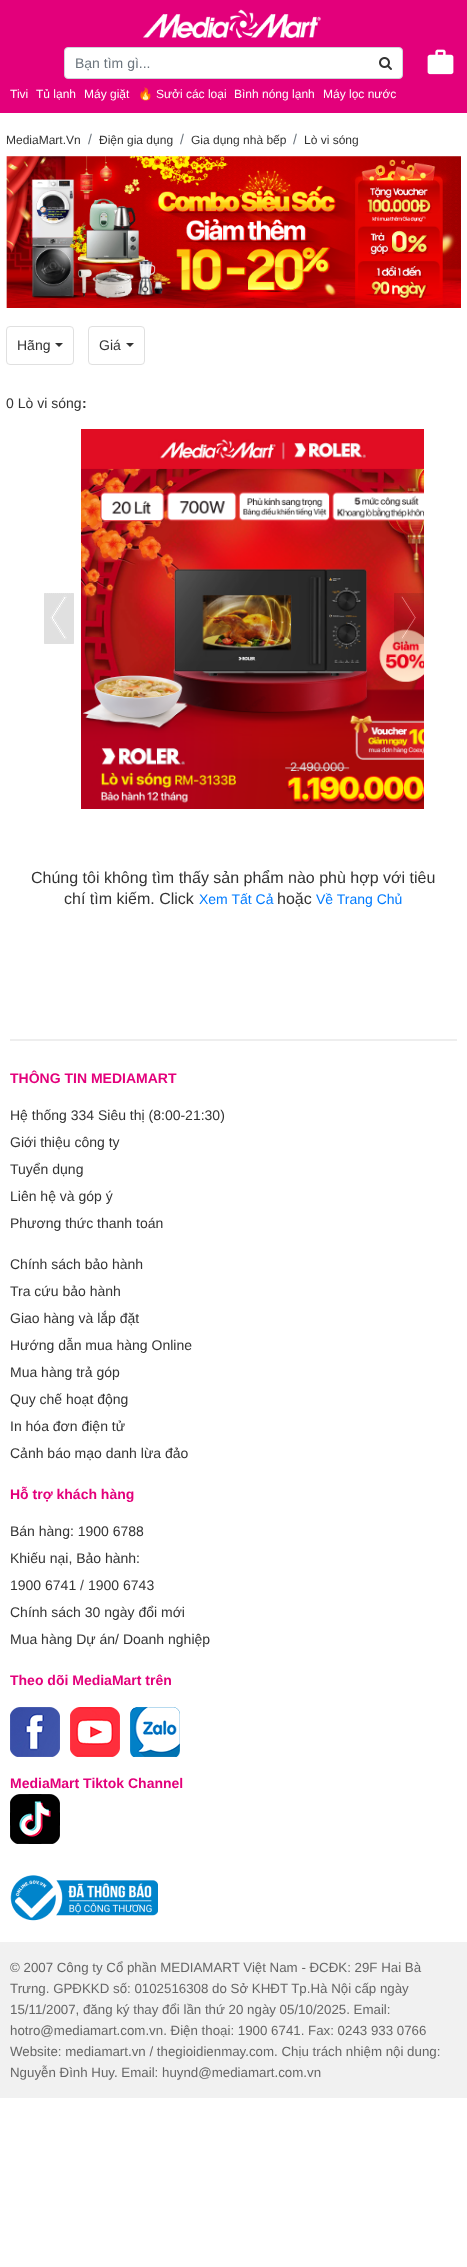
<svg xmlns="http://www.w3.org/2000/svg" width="467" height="2267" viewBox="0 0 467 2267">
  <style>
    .t1 { font: 14px Liberation Sans; fill: #6c757d; }
    .t2 { font: 12px Liberation Sans; fill: #fff; }
    .t3 { font: 12px Noto Color Emoji; fill: #fff; }
    .t4 { font: 12px Liberation Sans; fill: #333; }
    .t5 { font: 14px Liberation Sans; fill: #333; }
    .t6 { font: bold 14px Liberation Sans; fill: #333; }
    .t7 { font: 16px Liberation Sans; fill: #333; }
    .t8 { font: 14px Liberation Sans; fill: #007bff; }
    .t9 { font: bold 14px Liberation Sans; fill: #e3007b; }
    .t10 { font: 14px Liberation Sans; fill: #444; }
    .t11 { font: 13.3px Liberation Sans; fill: #666; }
  </style>
  <defs>
    <clipPath id="clip1"><rect x="138" y="84" width="88" height="20"/></clipPath>
  </defs>
  <rect width="100%" height="100%" fill="#fff"/>
  <rect x="0" y="0" width="467" height="113" fill="#e3007b"/>
  <image x="143" y="9" width="178" height="29" href="images/1.png"/>
  <rect x="64.5" y="47.5" width="338" height="31" rx="3.5" fill="#fff" stroke="#ced4da"/>
  <text x="75" y="68" class="t1">Bạn tìm gì...</text>
  <image x="379" y="57" width="13" height="13" href="images/2.png"/>
  <image x="427" y="49" width="27" height="26" href="images/3.png"/>
  <text x="10" y="98" class="t2">Tivi</text>
  <text x="36" y="98" class="t2">Tủ lạnh</text>
  <text x="84" y="98" class="t2">Máy giặt</text>
  <g clip-path="url(#clip1)">
    <text x="138" y="98" class="t3">🔥</text>
  </g>
  <text x="156" y="98" class="t2">Sưởi các loại</text>
  <text x="234" y="98" class="t2">Bình nóng lạnh</text>
  <text x="323" y="98" class="t2">Máy lọc nước</text>
  <text x="6" y="144" class="t4">MediaMart.Vn</text>
  <text x="88" y="144" class="t1">/</text>
  <text x="99" y="144" class="t4">Điện gia dụng</text>
  <text x="180" y="144" class="t1">/</text>
  <text x="191" y="144" class="t4">Gia dụng nhà bếp</text>
  <text x="293" y="144" class="t1">/</text>
  <text x="304" y="144" class="t4">Lò vi sóng</text>
  <image x="6" y="156" width="455" height="152" href="images/4.png"/>
  <rect x="6.5" y="326.5" width="67" height="38" rx="3.5" fill="none" stroke="#e0e0e0"/>
  <text x="17" y="350" class="t5">Hãng</text>
  <path d="M55 343H63L59 347Z" fill="#333"/>
  <rect x="88.5" y="326.5" width="56" height="38" rx="3.5" fill="none" stroke="#e0e0e0"/>
  <text x="99" y="350" class="t5">Giá</text>
  <path d="M126 343H134L130 347Z" fill="#333"/>
  <text x="6" y="408" class="t5">0 Lò vi sóng</text>
  <text x="82" y="408" class="t6">:</text>
  <image x="81" y="429" width="343" height="380" href="images/5.png"/>
  <image x="44" y="593" width="30" height="51" href="images/6.png"/>
  <image x="394" y="593" width="30" height="51" href="images/7.png"/>
  <text x="31" y="883" class="t7">Chúng tôi không tìm thấy sản phẩm nào phù hợp với tiêu</text>
  <text x="64" y="904" class="t7">chí tìm kiếm. Click</text>
  <text x="199" y="904" class="t8">Xem Tất Cả</text>
  <text x="277" y="904" class="t7">hoặc</text>
  <text x="316" y="904" class="t8">Về Trang Chủ</text>
  <rect x="10" y="1039" width="447" height="2" fill="#eee"/>
  <text x="10" y="1083" class="t9">THÔNG TIN MEDIAMART</text>
  <text x="10" y="1120" class="t5">Hệ thống 334 Siêu thị (8:00-21:30)</text>
  <text x="10" y="1147" class="t5">Giới thiệu công ty</text>
  <text x="10" y="1174" class="t5">Tuyển dụng</text>
  <text x="10" y="1201" class="t5">Liên hệ và góp ý</text>
  <text x="10" y="1228" class="t5">Phương thức thanh toán</text>
  <text x="10" y="1269" class="t5">Chính sách bảo hành</text>
  <text x="10" y="1296" class="t5">Tra cứu bảo hành</text>
  <text x="10" y="1323" class="t5">Giao hàng và lắp đặt</text>
  <text x="10" y="1350" class="t5">Hướng dẫn mua hàng Online</text>
  <text x="10" y="1377" class="t5">Mua hàng trả góp</text>
  <text x="10" y="1404" class="t5">Quy chế hoạt động</text>
  <text x="10" y="1431" class="t5">In hóa đơn điện tử</text>
  <text x="10" y="1458" class="t5">Cảnh báo mạo danh lừa đảo</text>
  <text x="10" y="1499" class="t9">Hỗ trợ khách hàng</text>
  <text x="10" y="1536" class="t5">Bán hàng: 1900 6788</text>
  <text x="10" y="1563" class="t5">Khiếu nại, Bảo hành:</text>
  <text x="10" y="1590" class="t5">1900 6741</text>
  <text x="80" y="1590" class="t10">/</text>
  <text x="88" y="1590" class="t5">1900 6743</text>
  <text x="10" y="1617" class="t5">Chính sách 30 ngày đổi mới</text>
  <text x="10" y="1644" class="t5">Mua hàng Dự án/ Doanh nghiệp</text>
  <text x="10" y="1685" class="t9">Theo dõi MediaMart trên</text>
  <image x="10" y="1707" width="50" height="50" href="images/8.png"/>
  <image x="70" y="1707" width="50" height="50" href="images/9.png"/>
  <image x="130" y="1707" width="50" height="50" href="images/10.png"/>
  <text x="10" y="1788" class="t9">MediaMart Tiktok Channel</text>
  <image x="10" y="1794" width="50" height="50" href="images/11.png"/>
  <image x="10" y="1875" width="148" height="46" href="images/12.png"/>
  <rect x="0" y="1942" width="467" height="156" fill="#f1f1f1"/>
  <text x="10" y="1972" class="t11">© 2007 Công ty Cổ phần MEDIAMART Việt Nam - ĐCĐK: 29F Hai Bà</text>
  <text x="10" y="1993" class="t11">Trưng. GPĐKKD số: 0102516308 do Sở KHĐT Tp.Hà Nội cấp ngày</text>
  <text x="10" y="2014" class="t11">15/11/2007, đăng ký thay đổi lần thứ 20 ngày 05/10/2025. Email:</text>
  <text x="10" y="2035" class="t11">hotro@mediamart.com.vn. Điện thoại: 1900 6741. Fax: 0243 933 0766</text>
  <text x="10" y="2056" class="t11">Website: mediamart.vn / thegioidienmay.com. Chịu trách nhiệm nội dung:</text>
  <text x="10" y="2077" class="t11">Nguyễn Đình Huy. Email: huynd@mediamart.com.vn</text>
</svg>
